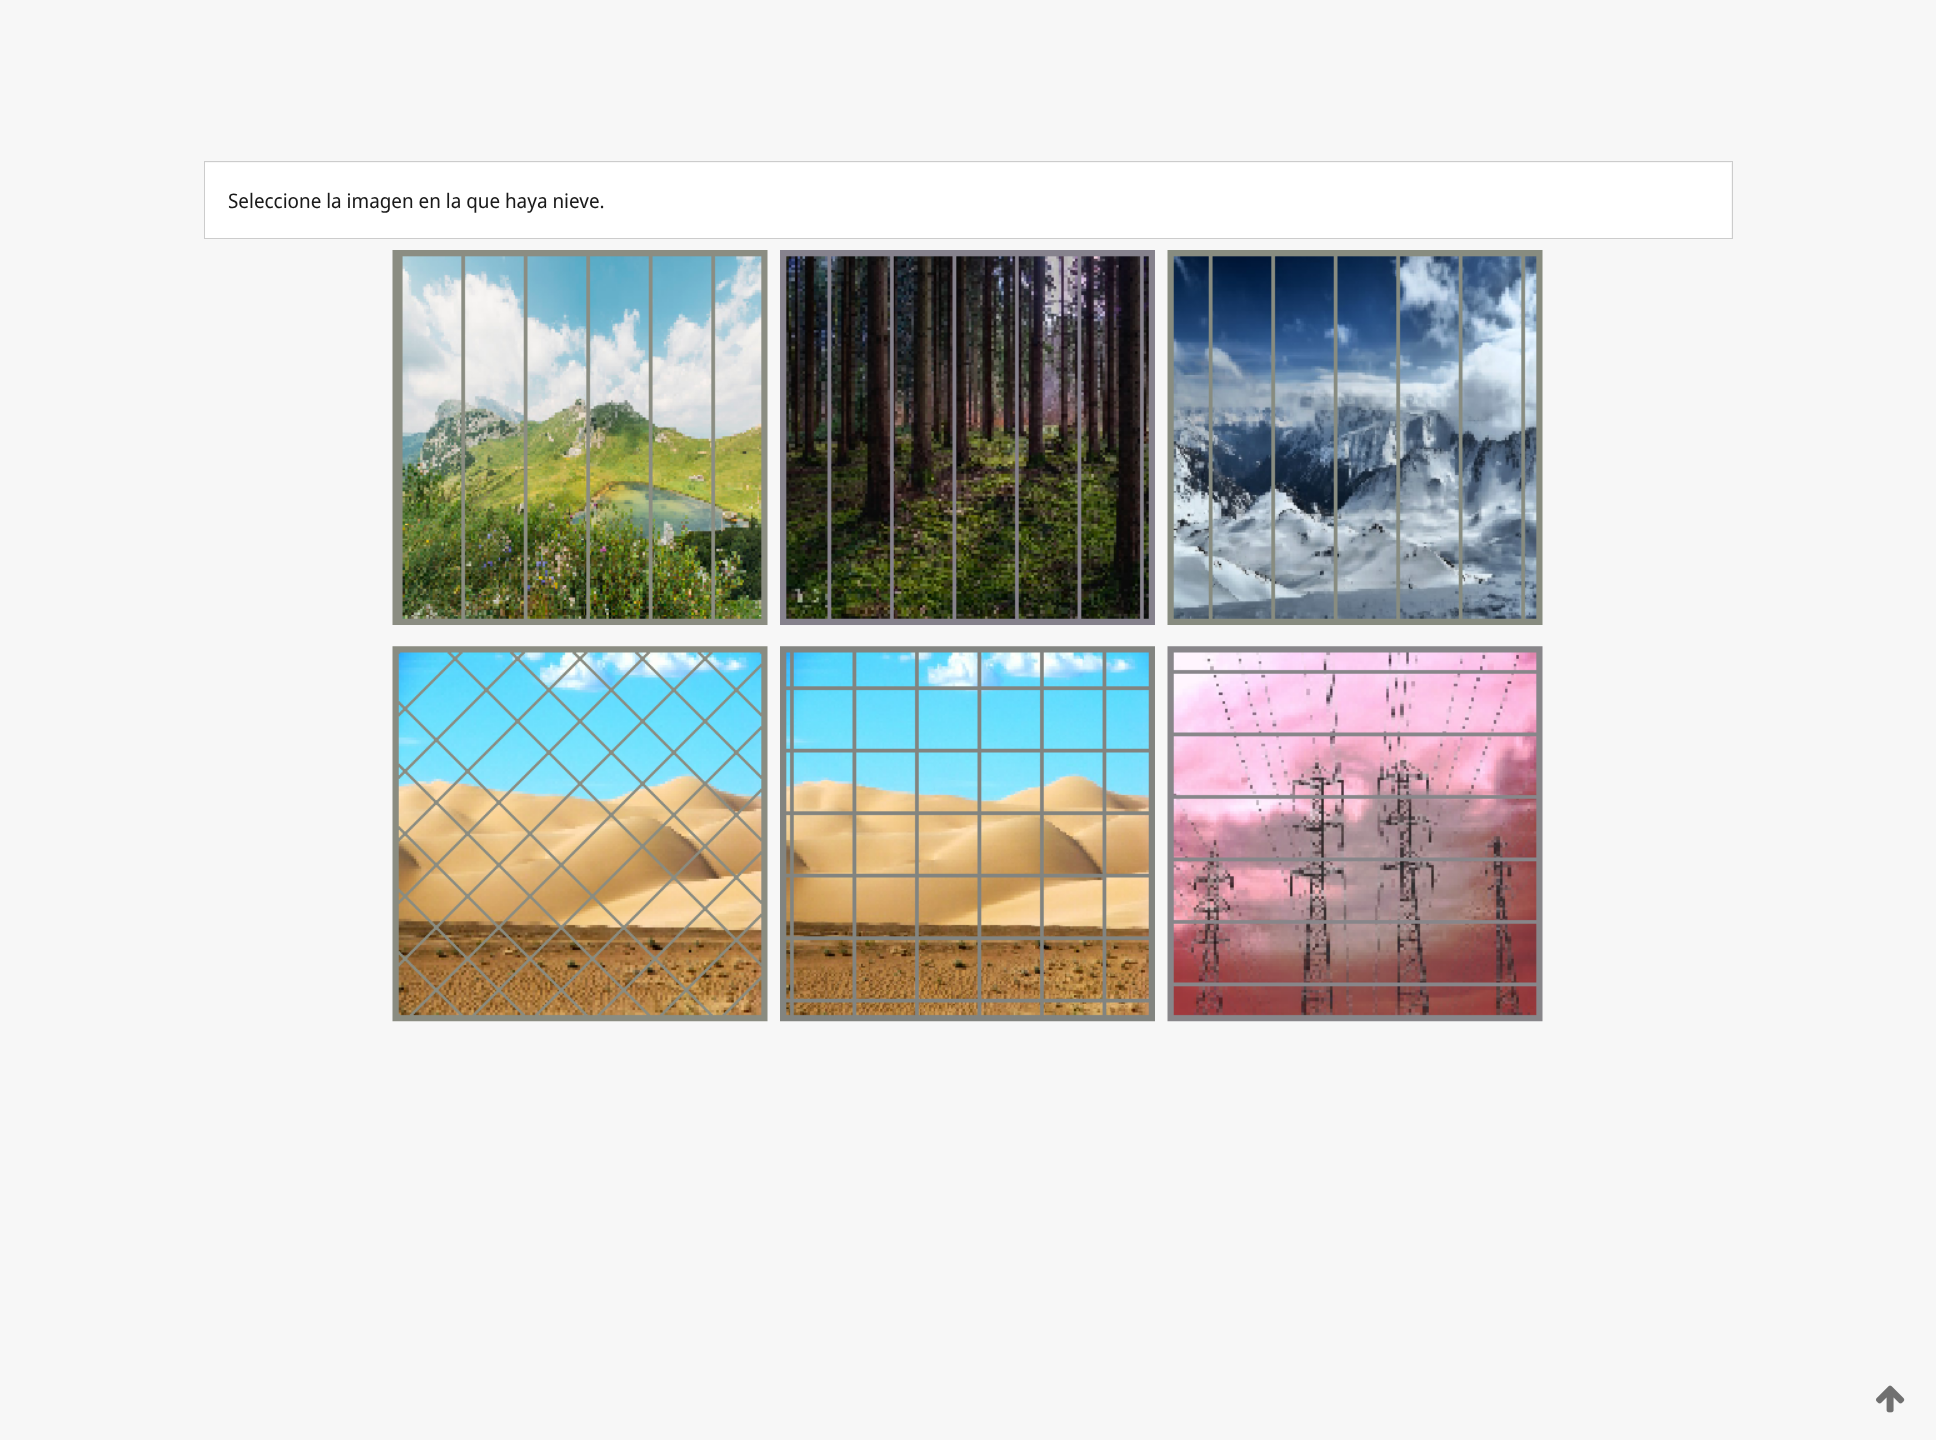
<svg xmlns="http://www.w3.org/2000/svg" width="1936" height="1440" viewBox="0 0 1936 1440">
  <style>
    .t1 { font: 20px Noto Sans Display; fill: #1a1a1a; }
  </style>
  <rect width="100%" height="100%" fill="#f7f7f7"/>
  <rect x="205" y="163" width="1526" height="75" fill="#fff"/>
  <rect x="204.5" y="161.5" width="1528" height="77" fill="none" stroke="#ccc"/>
  <text x="228" y="208" class="t1">Seleccione la imagen en la que haya nieve.</text>
  <image x="392" y="250" width="376" height="375" href="images/1.png"/>
  <image x="780" y="250" width="375" height="375" href="images/2.png"/>
  <image x="1167" y="250" width="376" height="375" href="images/3.png"/>
  <image x="392" y="646" width="376" height="376" href="images/4.png"/>
  <image x="780" y="646" width="375" height="376" href="images/5.png"/>
  <image x="1167" y="646" width="376" height="376" href="images/6.png"/>
  <image x="1876" y="1385" width="29" height="28" href="images/7.png"/>
</svg>
